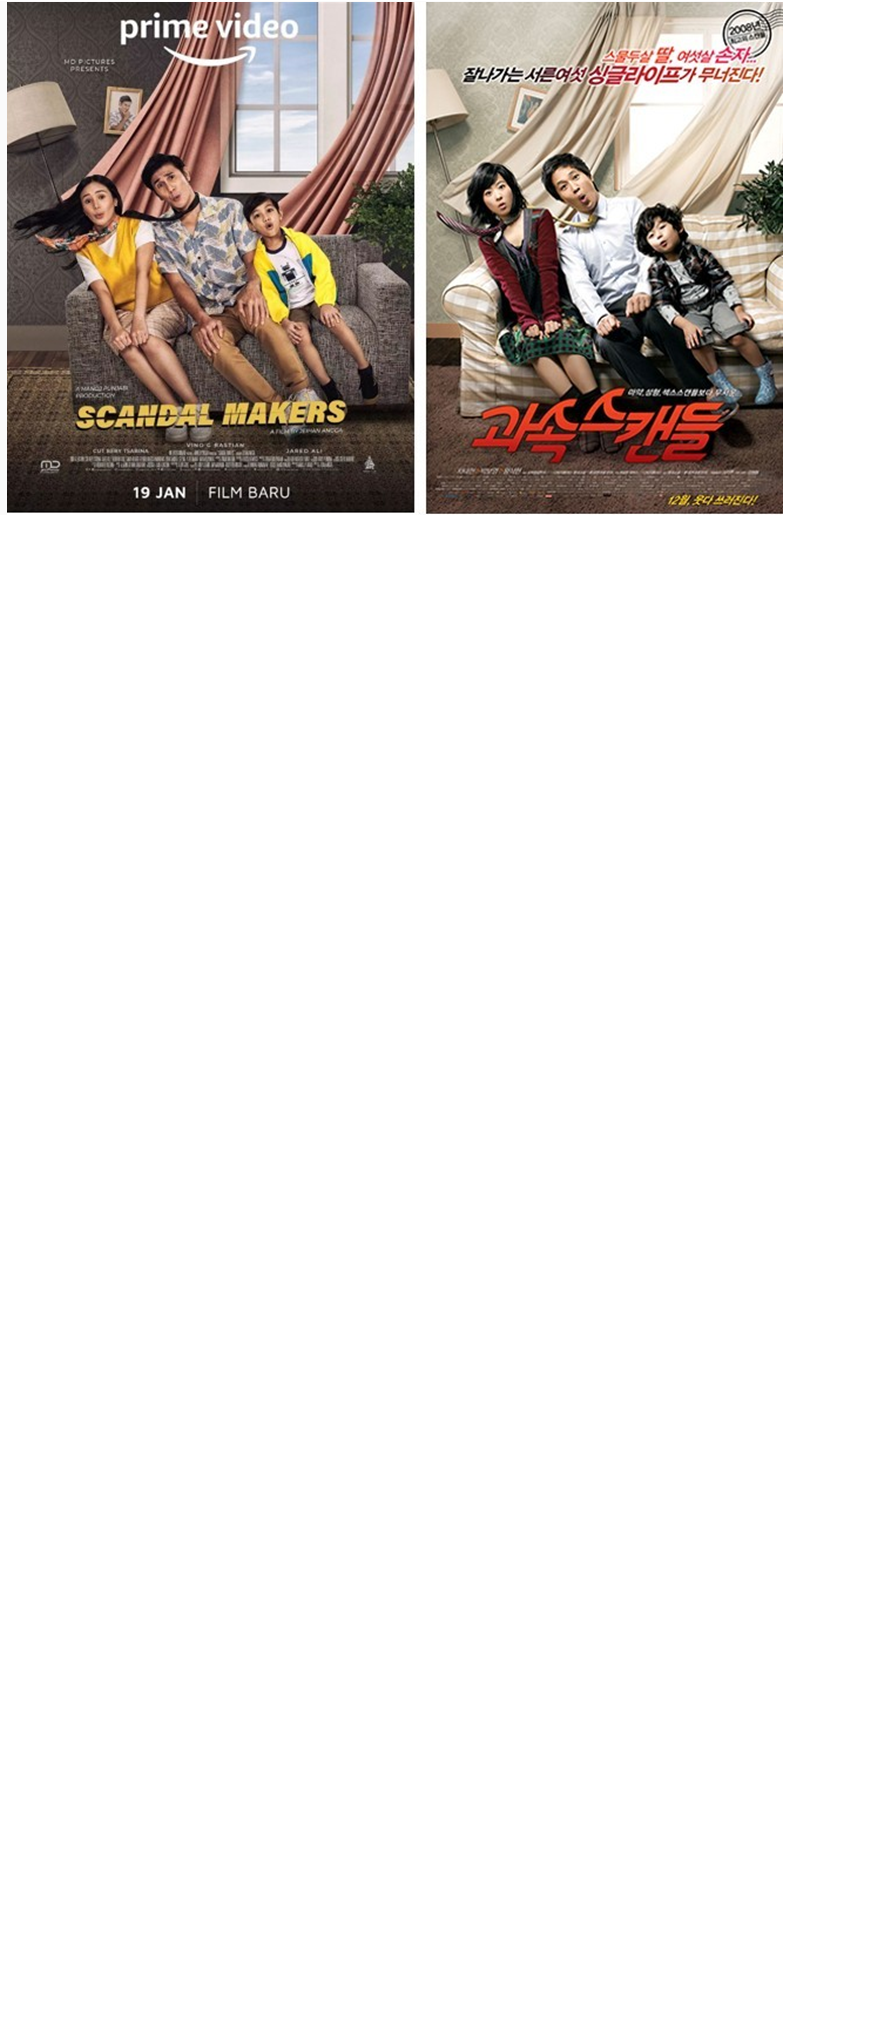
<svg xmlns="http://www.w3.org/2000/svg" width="893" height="2039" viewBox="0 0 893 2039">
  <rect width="100%" height="100%" fill="#fff"/>
  <image x="0" y="1" width="783" height="514" href="images/1.png"/>
</svg>
